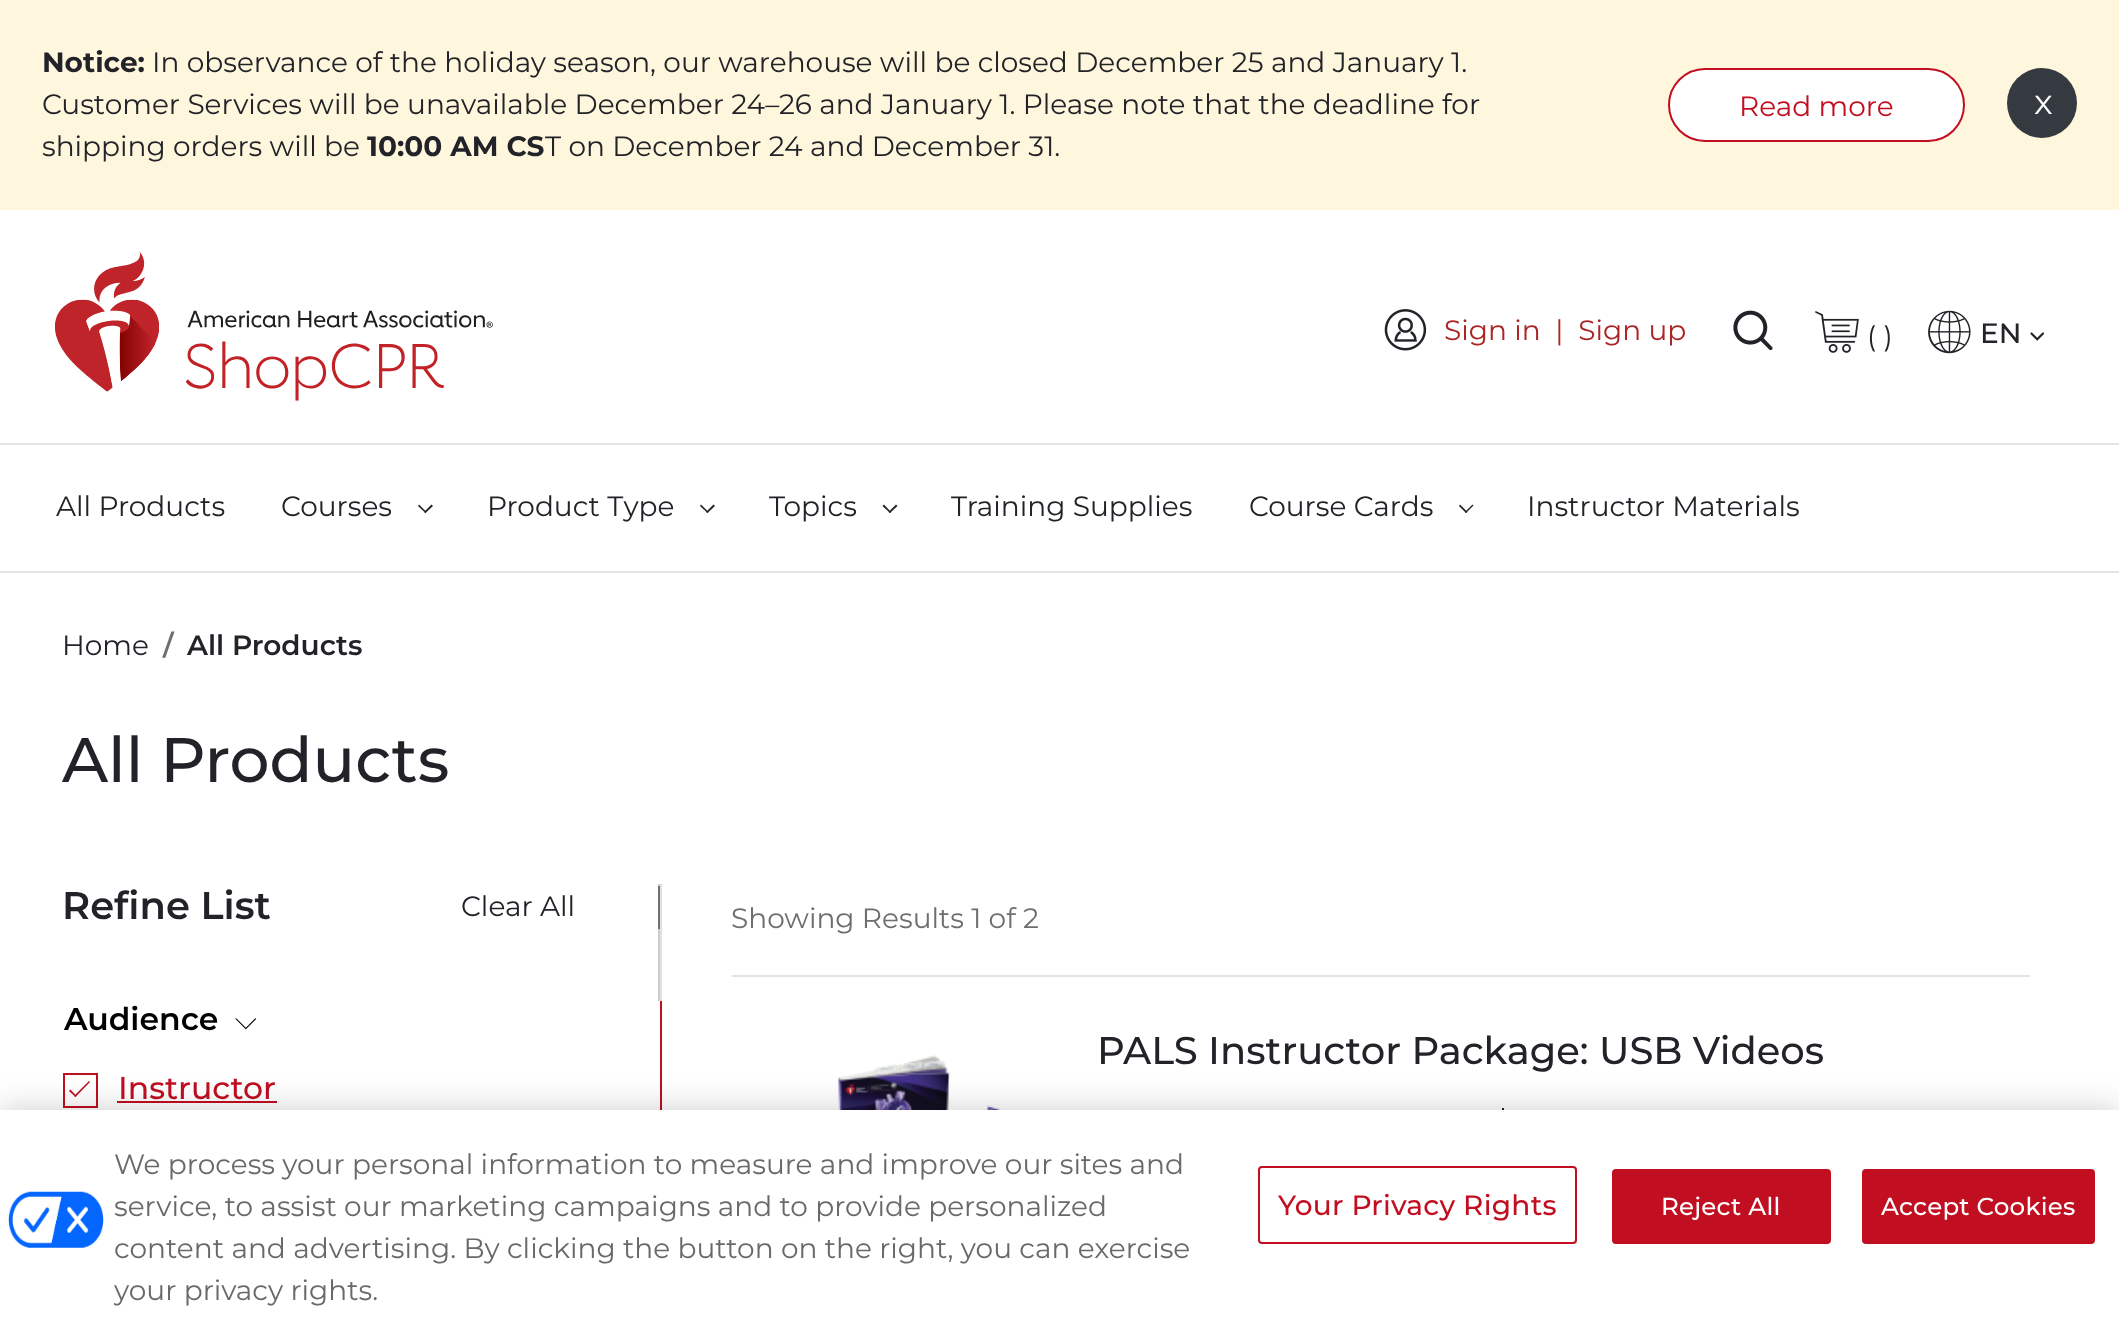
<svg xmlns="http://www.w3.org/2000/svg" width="2119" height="1330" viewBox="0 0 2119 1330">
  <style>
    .t1 { font: bold 28px Montserrat; fill: #222328; }
    .t2 { font: 28px Montserrat; fill: #222328; }
    .t3 { font: 28px Montserrat; fill: #c10e21; }
    .t4 { font: 35px Montserrat; fill: #fff; }
    .t5 { font: 28px Montserrat; fill: #ac2424; }
    .t6 { font: 500 28px Montserrat; fill: #222328; }
    .t7 { font: 600 28px Montserrat; fill: #6d6e71; }
    .t8 { font: 600 28px Montserrat; fill: #222328; }
    .t9 { font: 500 63px Montserrat; fill: #222328; }
    .t10 { font: 600 38.5px Montserrat; fill: #222328; }
    .t11 { font: 600 31.5px Montserrat; fill: #000; }
    .t12 { font: 500 31.5px Montserrat; fill: #c10e21; }
    .t13 { font: 28px Montserrat; fill: #6d6e71; }
    .t14 { font: 500 38.5px Montserrat; fill: #222328; }
    .t15 { font: 28px Montserrat; fill: #696969; }
    .t16 { font: 500 28px Montserrat; letter-spacing: 0.25px; fill: #c10e21; }
    .t17 { font: 500 24.5px Montserrat; letter-spacing: 0.25px; fill: #fff; }
  </style>
  <defs>
    <clipPath id="clip1"><rect x="114" y="1145" width="1088" height="168"/></clipPath>
  </defs>
  <rect width="100%" height="100%" fill="#fff"/>
  <rect x="0" y="0" width="2119" height="210" fill="#fff7dd"/>
  <text x="42" y="72" class="t1">Notice:</text>
  <text x="152" y="72" class="t2">In observance of the holiday season, our warehouse will be closed December 25 and January 1.</text>
  <text x="42" y="114" class="t2">Customer Services will be unavailable December 24–26 and January 1. Please note that the deadline for</text>
  <text x="42" y="156" class="t2">shipping orders will be</text>
  <text x="367" y="156" class="t1">10:00 AM CS</text>
  <text x="545" y="156" class="t2">T on December 24 and December 31.</text>
  <rect x="1669" y="69" width="295" height="72" rx="36" fill="#fff" stroke="#c10e21" stroke-width="2"/>
  <text x="1739" y="116" class="t3">Read more</text>
  <circle cx="2042" cy="103" r="35" fill="#343a40"/>
  <text x="2034" y="114" class="t4">x</text>
  <image x="55" y="252" width="438" height="149" href="images/1.png"/>
  <image x="1384" y="309" width="43" height="42" href="images/2.png"/>
  <text x="1444" y="340" class="t5" xml:space="preserve">Sign in  |  Sign up</text>
  <image x="1733" y="310" width="40" height="41" href="images/3.png"/>
  <image x="1815" y="311" width="44" height="42" href="images/4.png"/>
  <text x="1867" y="346" class="t2">( )</text>
  <image x="1928" y="310" width="43" height="44" href="images/5.png"/>
  <text x="1980" y="343" class="t6">EN</text>
  <image x="2030" y="332" width="14" height="9" href="images/6.png"/>
  <rect x="0" y="443" width="2119" height="2" fill="#e3e3e3"/>
  <text x="56" y="516" class="t2">All Products</text>
  <text x="281" y="516" class="t2">Courses</text>
  <path d="M433 506L425.5 513L424 512L431.5 504.5Z" fill="#222328"/>
  <path d="M426.5 512L425.5 513L418 506L419 504.5Z" fill="#222328"/>
  <text x="487" y="516" class="t2">Product Type</text>
  <path d="M715 506L707.5 513L706 512L713.5 504.5Z" fill="#222328"/>
  <path d="M708.5 512L707.5 513L700 506L701 504.5Z" fill="#222328"/>
  <text x="769" y="516" class="t2">Topics</text>
  <path d="M897.5 506L890 513L888.5 512L896 504.5Z" fill="#222328"/>
  <path d="M891 512L890 513L882.5 506L884 504.5Z" fill="#222328"/>
  <text x="951" y="516" class="t2">Training Supplies</text>
  <text x="1249" y="516" class="t2">Course Cards</text>
  <path d="M1473.5 505.5L1466 513L1465 512L1472.5 504.5Z" fill="#222328"/>
  <path d="M1467.5 512L1466 513L1459 506L1460 504.5Z" fill="#222328"/>
  <text x="1527" y="516" class="t2">Instructor Materials</text>
  <rect x="0" y="571" width="2119" height="2" fill="#e3e3e3"/>
  <text x="62" y="655" class="t2">Home</text>
  <text x="163" y="655" class="t7">/</text>
  <text x="187" y="655" class="t8">All Products</text>
  <text x="62" y="782" class="t9">All Products</text>
  <rect x="660" y="884" width="2" height="117" fill="#dee2e6"/>
  <rect x="658" y="884" width="2" height="117" fill="#ccc"/>
  <text x="62" y="919" class="t10">Refine List</text>
  <text x="461" y="916" class="t2">Clear All</text>
  <rect x="658" y="886" width="2" height="43" fill="#707070"/>
  <rect x="660" y="1001" width="2" height="109" fill="#c10e21"/>
  <text x="64" y="1030" class="t11">Audience</text>
  <image x="235" y="1018" width="21" height="12" href="images/7.png"/>
  <rect x="64" y="1074" width="33" height="33" fill="none" stroke="#c10e21" stroke-width="2"/>
  <text x="118" y="1099" class="t12">Instructor</text>
  <rect x="117" y="1101" width="160" height="2" fill="#c10e21"/>
  <path d="M89 1081L90 1082L75.5 1097L74 1096Z" fill="#c10e21"/>
  <path d="M70.5 1089.5L76.5 1096L75.5 1097L69 1091Z" fill="#c10e21"/>
  <text x="731" y="928" class="t13">Showing Results 1 of 2</text>
  <rect x="732" y="975" width="1298" height="2" fill="#e3e3e3"/>
  <image x="838" y="1055" width="163" height="55" href="images/8.png"/>
  <text x="1097" y="1064" class="t14">PALS Instructor Package: USB Videos</text>
  <rect x="1502" y="1108" width="2" height="2" fill="#222328"/>
  <rect x="0" y="1110" width="2119" height="220" fill="#00000033" filter="blur(16px)"/>
  <rect x="0" y="1110" width="2119" height="220" fill="#fff"/>
  <image x="8" y="1191" width="96" height="57" href="images/9.png"/>
  <text x="114" y="1174" class="t15">We process your personal information to measure and improve our sites and</text>
  <text x="114" y="1216" class="t15">service, to assist our marketing campaigns and to provide personalized</text>
  <text x="114" y="1258" class="t15">content and advertising. By clicking the button on the right, you can exercise</text>
  <g clip-path="url(#clip1)">
    <text x="114" y="1300" class="t15">your privacy rights.</text>
  </g>
  <rect x="1259" y="1167" width="317" height="76" rx="3" fill="none" stroke="#c10e21" stroke-width="2"/>
  <text x="1278" y="1215" class="t16">Your Privacy Rights</text>
  <rect x="1613" y="1170" width="217" height="73" rx="3" fill="#c10e21" stroke="#c10e21" stroke-width="2"/>
  <text x="1661" y="1215" class="t17">Reject All</text>
  <rect x="1863" y="1170" width="231" height="73" rx="3" fill="#c10e21" stroke="#c10e21" stroke-width="2"/>
  <text x="1881" y="1215" class="t17">Accept Cookies</text>
</svg>
